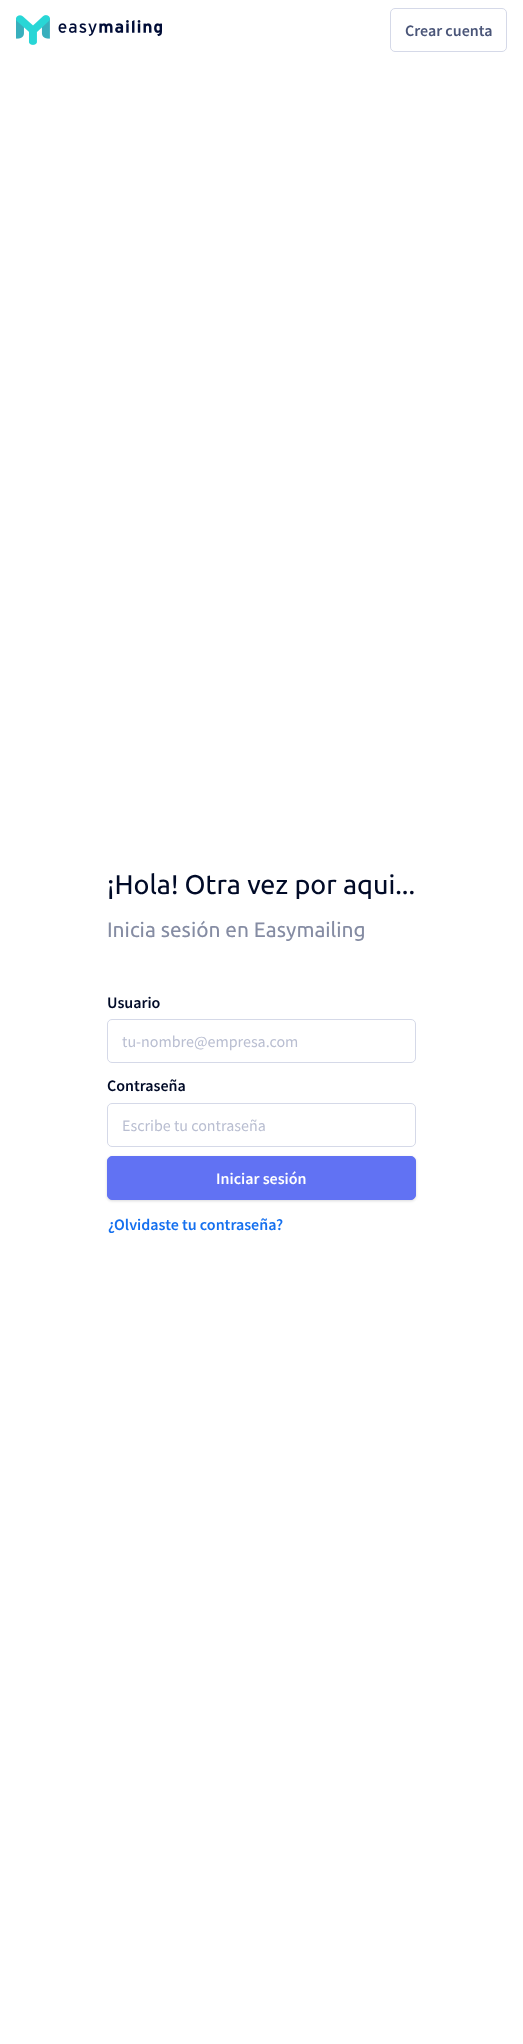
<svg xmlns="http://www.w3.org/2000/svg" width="523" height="2044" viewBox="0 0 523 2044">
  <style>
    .t1 { font: 600 16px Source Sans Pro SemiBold; fill: #4a5578; }
    .t2 { font: 27px Ubuntu; fill: #000a27; }
    .t3 { font: 20.9px Ubuntu; fill: #858ca3; }
    .t4 { font: 600 16px Source Sans Pro SemiBold; fill: #000a27; }
    .t5 { font: 16px Source Sans Pro; fill: #b9bed1; }
    .t6 { font: 600 16px Source Sans Pro SemiBold; fill: #fff; }
    .t7 { font: 600 16px Source Sans Pro SemiBold; fill: #1570ef; }
  </style>
  <rect width="100%" height="100%" fill="#fff"/>
  <image x="16" y="15" width="146" height="30" href="images/1.png"/>
  <rect x="390.5" y="8.5" width="116" height="43" rx="4.5" fill="none" stroke="#d5d9e8"/>
  <text x="405" y="36" class="t1">Crear cuenta</text>
  <text x="107" y="894" class="t2">¡Hola! Otra vez por aqui...</text>
  <text x="107" y="937" class="t3">Inicia sesión en Easymailing</text>
  <text x="107" y="1008" class="t4">Usuario</text>
  <rect x="107.5" y="1019.5" width="308" height="43" rx="4.5" fill="none" stroke="#d5d9e8"/>
  <text x="122" y="1047" class="t5">tu-nombre@empresa.com</text>
  <text x="107" y="1091" class="t4">Contraseña</text>
  <rect x="107.5" y="1103.5" width="308" height="43" rx="4.5" fill="none" stroke="#d5d9e8"/>
  <text x="122" y="1131" class="t5">Escribe tu contraseña</text>
  <rect x="107" y="1157" width="309" height="44" rx="5" fill="#1113221a" filter="blur(1.5px)"/>
  <rect x="107" y="1157" width="309" height="44" rx="5" fill="#1113220f" filter="blur(1px)"/>
  <rect x="107.5" y="1156.5" width="308" height="43" rx="4.5" fill="#6172f3" stroke="#6172f3"/>
  <text x="216" y="1184" class="t6">Iniciar sesión</text>
  <text x="108" y="1230" class="t7">¿Olvidaste tu contraseña?</text>
</svg>
